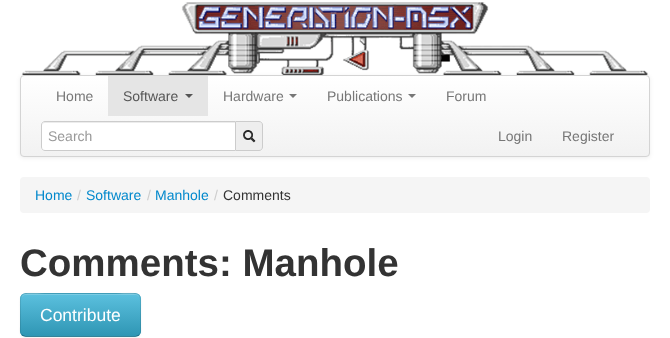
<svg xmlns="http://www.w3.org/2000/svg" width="670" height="338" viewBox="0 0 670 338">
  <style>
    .t1 { font: 14px Liberation Sans; fill: #777; }
    .t2 { font: 14px Liberation Sans; fill: #555; }
    .t3 { font: 14px Liberation Sans; fill: #999; }
    .t4 { font: 14px Liberation Sans; fill: #08c; }
    .t5 { font: 14px Liberation Sans; fill: #ccc; }
    .t6 { font: 14px Liberation Sans; fill: #333; }
    .t7 { font: bold 38.5px Liberation Sans; fill: #333; }
    .t8 { font: 17.5px Liberation Sans; fill: #fff; }
  </style>
  <defs>
    <clipPath id="clip1"><rect x="20" y="75" width="630" height="82" rx="4"/></clipPath>
    <linearGradient id="g1" gradientUnits="userSpaceOnUse" x1="335" y1="76" x2="335" y2="156"><stop offset="0" stop-color="#fff"/><stop offset="1" stop-color="#f2f2f2"/></linearGradient>
    <clipPath id="clip2"><rect x="20" y="293" width="121" height="44" rx="6"/></clipPath>
    <linearGradient id="g2" gradientUnits="userSpaceOnUse" x1="81" y1="294" x2="81" y2="336"><stop offset="0" stop-color="#5bc0de"/><stop offset="1" stop-color="#2f96b4"/></linearGradient>
  </defs>
  <rect width="100%" height="100%" fill="#fff"/>
  <rect x="20" y="76" width="630" height="82" rx="4" fill="#00000012" filter="blur(2px)"/>
  <image x="21" y="2" width="628" height="73" href="images/1.png"/>
  <g clip-path="url(#clip1)">
    <rect x="20" y="76" width="630" height="80" fill="url(#g1)"/>
  </g>
  <rect x="20.5" y="75.5" width="629" height="81" rx="3.5" fill="none" stroke="#d4d4d4"/>
  <text x="56" y="101" class="t1">Home</text>
  <rect x="108" y="76" width="100" height="40" fill="#e5e5e5"/>
  <text x="123" y="101" class="t2">Software</text>
  <path d="M185 94H193L189 98Z" fill="#555"/>
  <text x="223" y="101" class="t1">Hardware</text>
  <path d="M289 94H297L293 98Z" fill="#777"/>
  <text x="327" y="101" class="t1">Publications</text>
  <path d="M408 94H416L412 98Z" fill="#777"/>
  <text x="446" y="101" class="t1">Forum</text>
  <path d="M235.5 121.5H259C261 121.5 262.5 123 262.5 125V147C262.5 149 261 150.5 259 150.5H235.5Z" fill="#eee" stroke="#ccc"/>
  <path d="M45 121H236V151H45C43 151 41 149 41 147V125C41 123 43 121 45 121Z" fill="#fff"/>
  <path d="M45 123H235V122H45C43 122 42 124 42 126C42 124 43 123 45 123Z" fill="#ececec"/>
  <path d="M45 121.5H235.5V150.5H45C43 150.5 41.5 149 41.5 147V125C41.5 123 43 121.5 45 121.5Z" fill="none" stroke="#ccc"/>
  <text x="48" y="141" class="t3">Search</text>
  <image x="243" y="130" width="13" height="13" href="images/2.png"/>
  <text x="498" y="141" class="t1">Login</text>
  <text x="562" y="141" class="t1">Register</text>
  <rect x="20" y="177" width="630" height="36" rx="4" fill="#f5f5f5"/>
  <text x="35" y="200" class="t4">Home</text>
  <text x="77" y="200" class="t5">/</text>
  <text x="86" y="200" class="t4">Software</text>
  <text x="147" y="200" class="t5">/</text>
  <text x="155" y="200" class="t4">Manhole</text>
  <text x="214" y="200" class="t5">/</text>
  <text x="223" y="200" class="t6">Comments</text>
  <text x="20" y="276" class="t7">Comments: Manhole</text>
  <rect x="20" y="294" width="121" height="44" rx="6" fill="#0000000d" filter="blur(1px)"/>
  <rect x="20" y="293" width="121" height="44" rx="6" fill="#49afcd"/>
  <g clip-path="url(#clip2)">
    <rect x="20" y="294" width="121" height="42" fill="url(#g2)"/>
  </g>
  <path d="M26 295H135C138 295 140 297 140 300C140 289 121 294 117 294H44C40 294 21 289 21 300C21 297 23 295 26 295Z" fill="#ffffff33"/>
  <path d="M139 335L135.5 336.5H25.5L22 335" fill="none" stroke="#00000040"/>
  <path d="M22 335C19.5 332.5 20.5 328.5 20.5 325.5V315C20.5 290 17.5 293.5 44 293.5H117C143.5 293.5 140.5 290 140.5 315V325.5C140.5 328.5 141.5 332.5 139 335" fill="none" stroke="#0000001a"/>
  <text x="40" y="321" class="t8">Contribute</text>
</svg>
